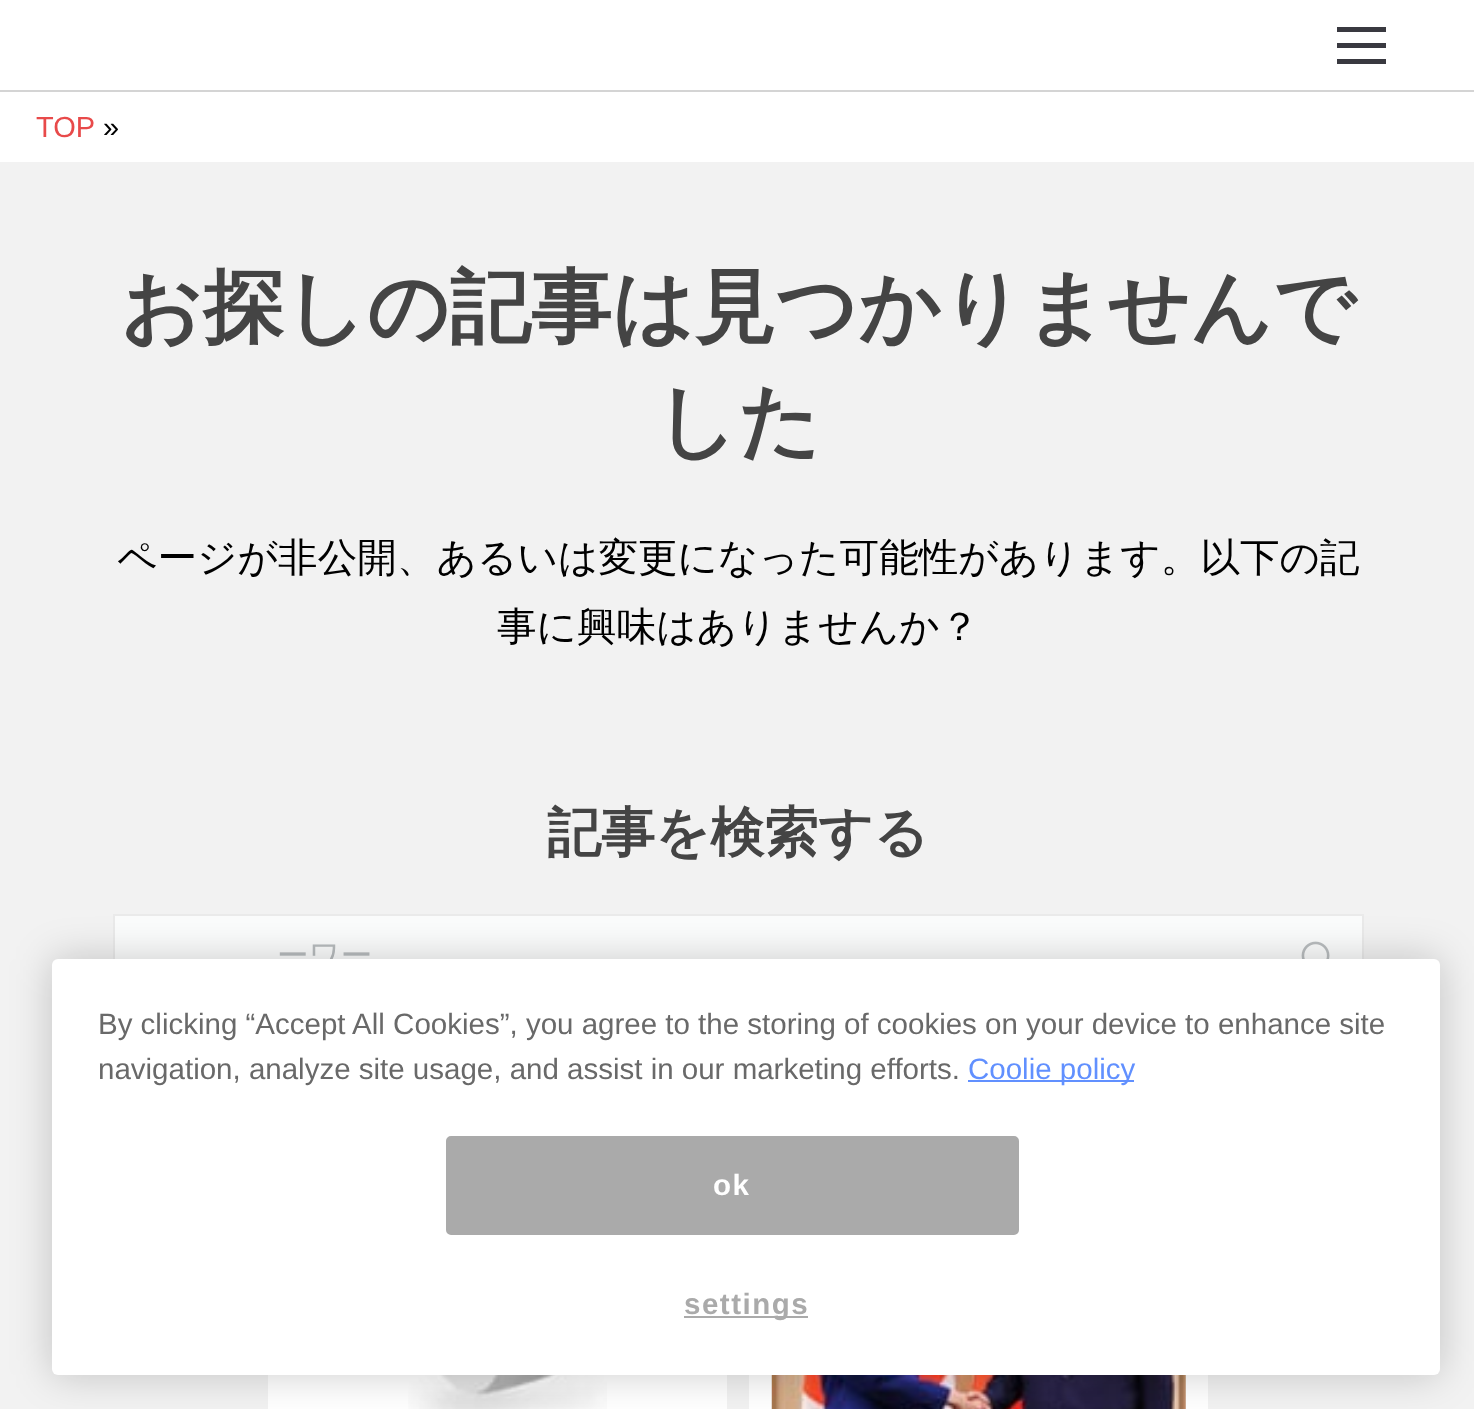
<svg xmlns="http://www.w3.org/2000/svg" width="1474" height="1409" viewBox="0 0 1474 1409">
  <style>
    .t1 { font: 29px Liberation Sans; fill: #e84a4a; }
    .t2 { font: 29px Liberation Sans; fill: #000; }
    .t3 { font: bold 81px WenQuanYi Zen Hei; fill: #444; }
    .t4 { font: 500 39.6px WenQuanYi Zen Hei; fill: #000; }
    .t5 { font: bold 54px WenQuanYi Zen Hei; fill: #444; }
    .t6 { font: 500 31.5px WenQuanYi Zen Hei; fill: #b8bcbe; }
    .t7 { font: 29.5px Liberation Sans; fill: #696969; }
    .t8 { font: 29.5px Liberation Sans; fill: #6190ff; }
    .t9 { font: bold 29.5px Liberation Sans; letter-spacing: 1.5px; fill: #fff; }
    .t10 { font: bold 29.5px Liberation Sans; letter-spacing: 1.5px; fill: #aaa; }
  </style>
  <rect width="100%" height="100%" fill="#f2f2f2"/>
  <rect x="0" y="0" width="1474" height="90" fill="#fff"/>
  <rect x="0" y="90" width="1474" height="2" fill="#d4d4d4"/>
  <rect x="1337" y="43" width="49" height="5" fill="#393940"/>
  <rect x="1337" y="27" width="49" height="5" fill="#393940"/>
  <rect x="1337" y="59" width="49" height="5" fill="#393940"/>
  <rect x="0" y="92" width="1474" height="70" fill="#fff"/>
  <text x="36" y="137" class="t1">TOP</text>
  <text x="103" y="137" class="t2">»</text>
  <text x="120" y="335" class="t3">お探しの記事は見つかりませんで</text>
  <text x="655" y="449" class="t3">した</text>
  <text x="117" y="571" class="t4">ページが非公開、あるいは変更になった可能性があります。以下の記</text>
  <text x="497" y="640" class="t4">事に興味はありませんか？</text>
  <text x="547" y="851" class="t5">記事を検索する</text>
  <rect x="115" y="916" width="1247" height="43" fill="#fbfcfc"/>
  <rect x="114" y="915" width="1249" height="79" fill="none" stroke="#eaeaea" stroke-width="2"/>
  <text x="277" y="966" class="t6">ーワー</text>
  <image x="1301" y="941" width="29" height="18" href="images/1.png"/>
  <rect x="268" y="1375" width="459" height="34" fill="#fff"/>
  <image x="408" y="1375" width="199" height="34" href="images/2.png"/>
  <rect x="749" y="1375" width="459" height="34" fill="#fff"/>
  <image x="771" y="1375" width="415" height="34" href="images/3.png"/>
  <rect x="52" y="959" width="1388" height="416" rx="6" fill="#00000033" filter="blur(20px)"/>
  <rect x="52" y="959" width="1388" height="416" rx="6" fill="#fff"/>
  <text x="98" y="1034" class="t7">By clicking “Accept All Cookies”, you agree to the storing of cookies on your device to enhance site</text>
  <text x="98" y="1079" class="t7">navigation, analyze site usage, and assist in our marketing efforts.</text>
  <rect x="968" y="1080" width="166" height="2" fill="#6190ff"/>
  <text x="968" y="1079" class="t8">Coolie policy</text>
  <rect x="447" y="1137" width="571" height="97" rx="4" fill="#aaa" stroke="#aaa" stroke-width="2"/>
  <text x="713" y="1195" class="t9">ok</text>
  <rect x="684" y="1316" width="124" height="2" fill="#aaa"/>
  <text x="684" y="1314" class="t10">settings</text>
</svg>
